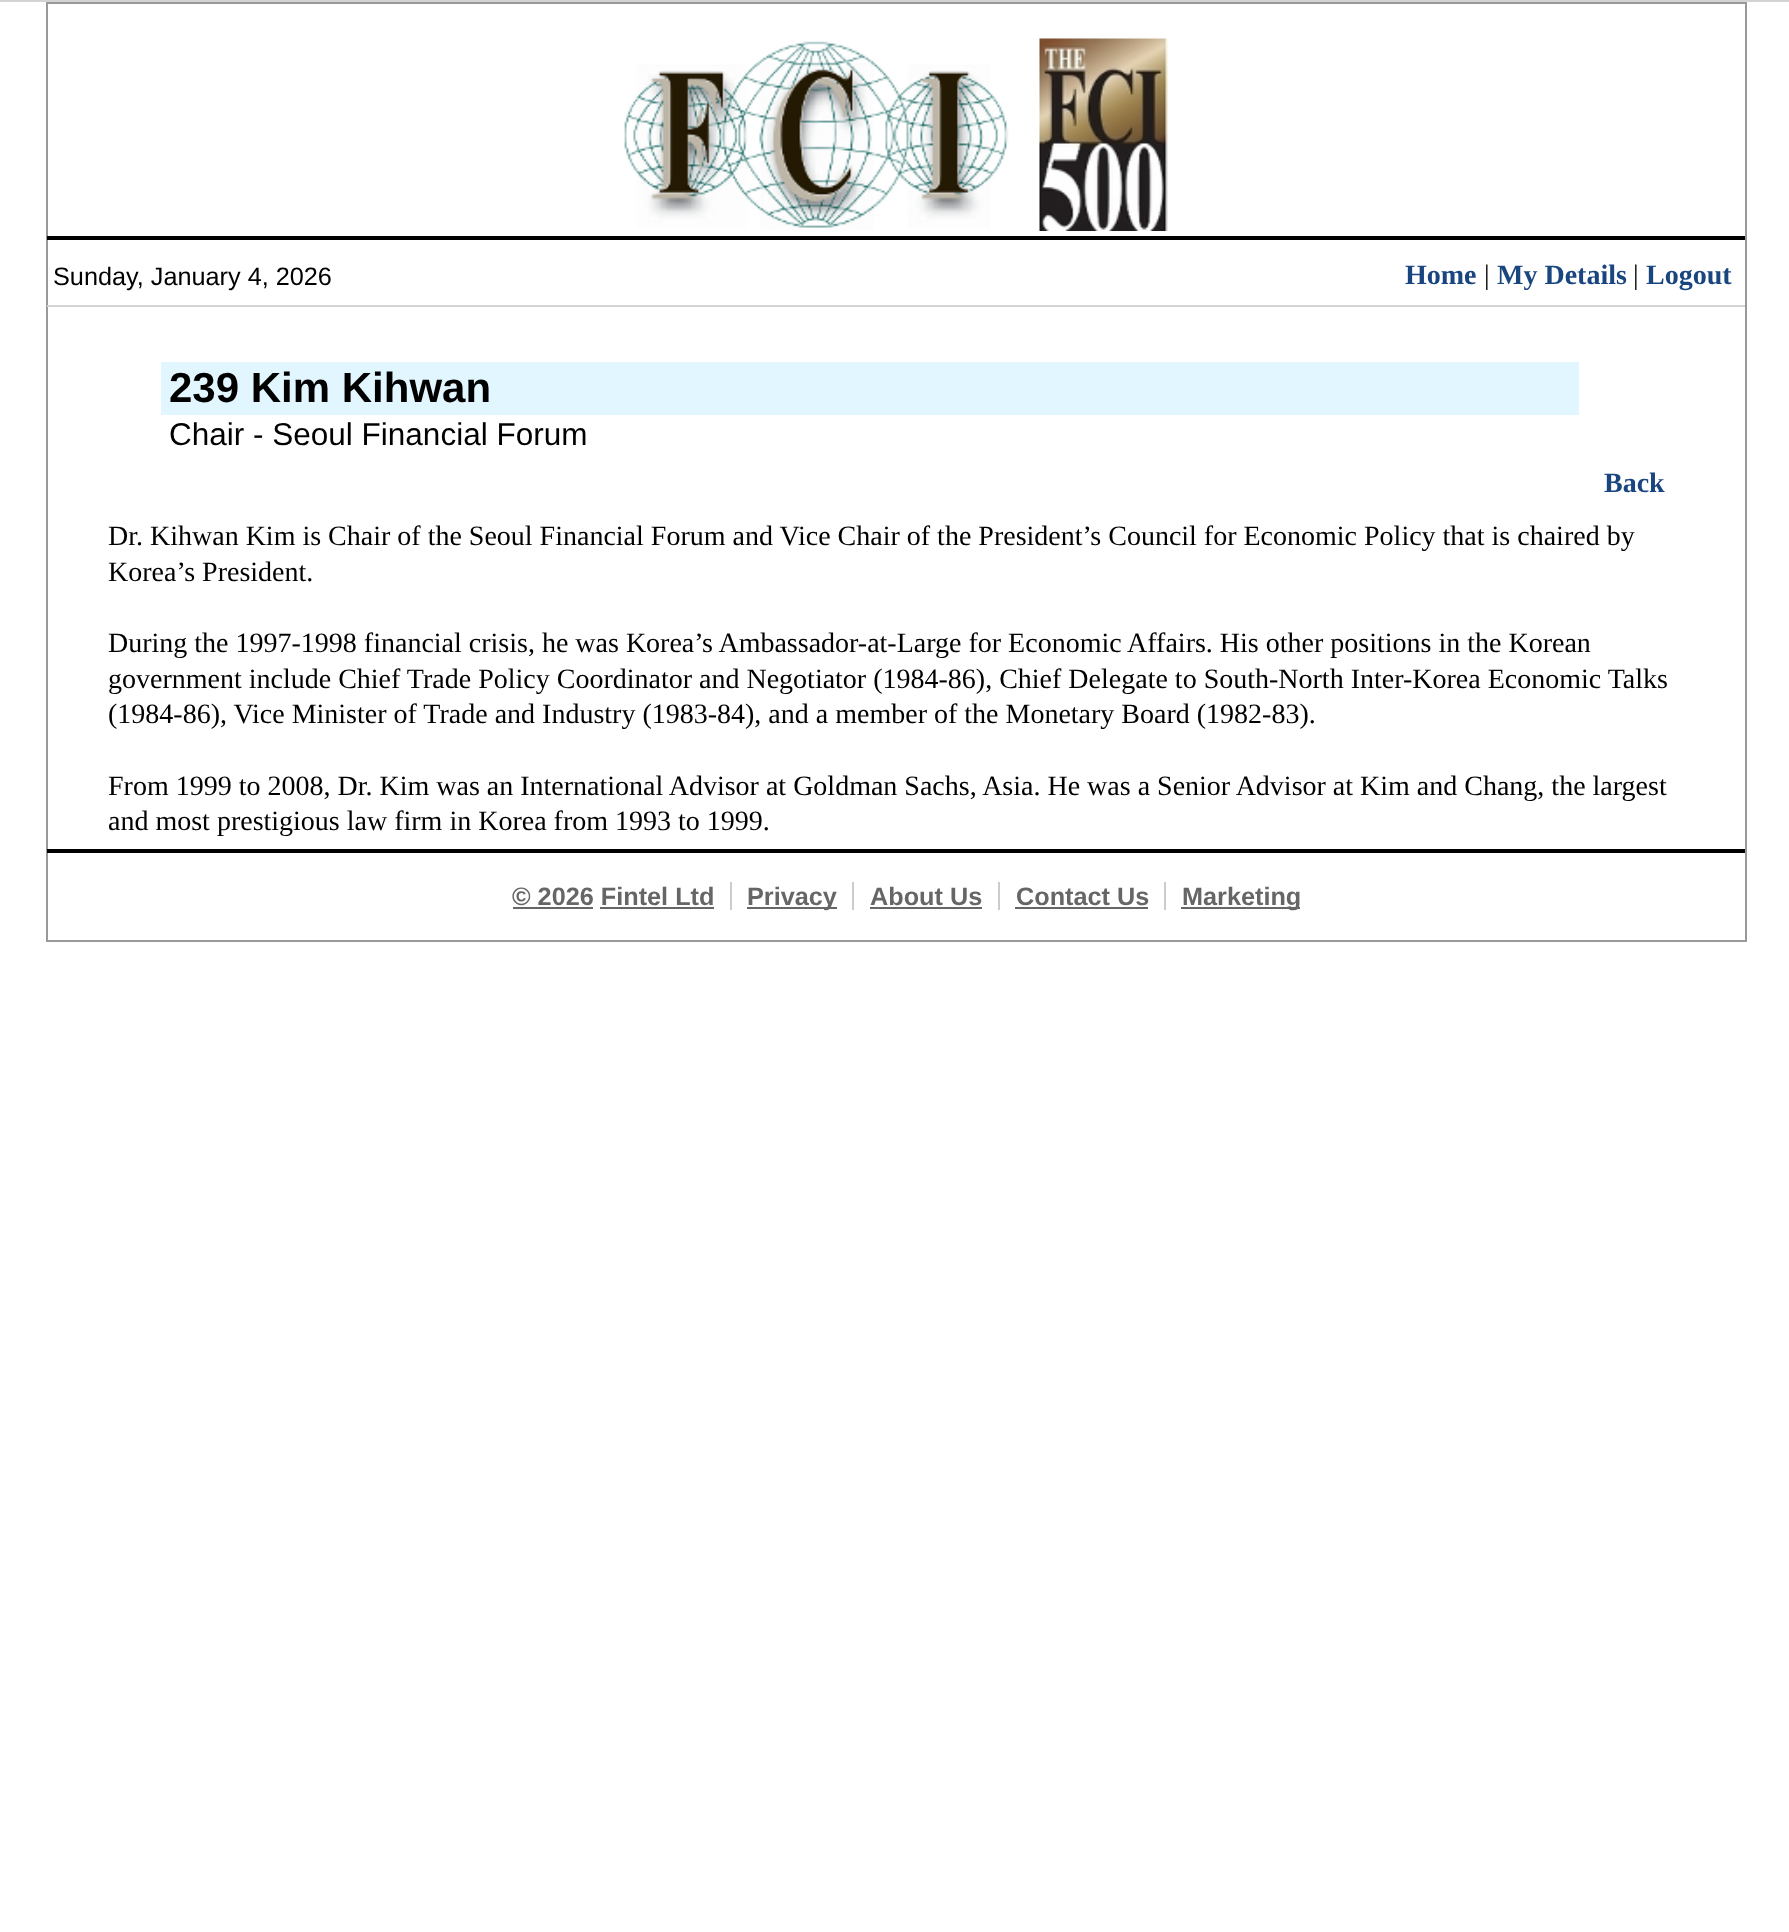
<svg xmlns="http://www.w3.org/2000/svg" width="1789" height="1932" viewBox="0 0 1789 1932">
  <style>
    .t1 { font: 25.25px Liberation Sans; fill: #000; }
    .t2 { font: bold 28px Liberation Serif; fill: #1a4680; }
    .t3 { font: 28px Liberation Serif; fill: #000; }
    .t4 { font: bold 42px Liberation Sans; fill: #000; }
    .t5 { font: 31.5px Liberation Sans; fill: #000; }
    .t6 { font: bold 25.25px Liberation Sans; fill: #666; }
  </style>
  <rect width="100%" height="100%" fill="#fff"/>
  <rect x="0" y="0" width="1789" height="2" fill="#d3d3d3"/>
  <rect x="47" y="3" width="1699" height="938" fill="none" stroke="#999" stroke-width="2"/>
  <rect x="47" y="236" width="1698" height="4" fill="#000"/>
  <image x="624" y="38" width="544" height="193" href="images/1.png"/>
  <text x="53" y="285" class="t1">Sunday, January 4, 2026</text>
  <text x="1405" y="284" class="t2">Home</text>
  <text x="1484" y="284" class="t3">|</text>
  <text x="1497" y="284" class="t2">My Details</text>
  <text x="1633" y="284" class="t3">|</text>
  <text x="1646" y="284" class="t2">Logout</text>
  <rect x="47" y="305" width="1698" height="2" fill="#d3d3d3"/>
  <rect x="161" y="362" width="1418" height="53" fill="#e1f6fe"/>
  <text x="169" y="402" class="t4">239 Kim Kihwan</text>
  <text x="169" y="445" class="t5">Chair - Seoul Financial Forum</text>
  <text x="1604" y="492" class="t2">Back</text>
  <text x="108" y="545" class="t3">Dr. Kihwan Kim is Chair of the Seoul Financial Forum and Vice Chair of the President’s Council for Economic Policy that is chaired by</text>
  <text x="108" y="581" class="t3">Korea’s President.</text>
  <text x="108" y="652" class="t3">During the 1997-1998 financial crisis, he was Korea’s Ambassador-at-Large for Economic Affairs. His other positions in the Korean</text>
  <text x="108" y="688" class="t3">government include Chief Trade Policy Coordinator and Negotiator (1984-86), Chief Delegate to South-North Inter-Korea Economic Talks</text>
  <text x="108" y="723" class="t3">(1984-86), Vice Minister of Trade and Industry (1983-84), and a member of the Monetary Board (1982-83).</text>
  <text x="108" y="795" class="t3">From 1999 to 2008, Dr. Kim was an International Advisor at Goldman Sachs, Asia. He was a Senior Advisor at Kim and Chang, the largest</text>
  <text x="108" y="830" class="t3">and most prestigious law firm in Korea from 1993 to 1999.</text>
  <rect x="47" y="849" width="1698" height="4" fill="#000"/>
  <text x="512" y="905" class="t6">© 2026 Fintel Ltd</text>
  <rect x="513" y="907" width="80" height="2" fill="#666"/>
  <rect x="600" y="907" width="114" height="2" fill="#666"/>
  <rect x="747" y="907" width="90" height="2" fill="#666"/>
  <text x="747" y="905" class="t6">Privacy</text>
  <rect x="730" y="882" width="2" height="28" fill="#ccc"/>
  <text x="870" y="905" class="t6">About Us</text>
  <rect x="852" y="882" width="2" height="28" fill="#ccc"/>
  <rect x="870" y="907" width="112" height="2" fill="#666"/>
  <text x="1016" y="905" class="t6">Contact Us</text>
  <rect x="998" y="882" width="2" height="28" fill="#ccc"/>
  <rect x="1015" y="907" width="133" height="2" fill="#666"/>
  <rect x="1181" y="907" width="119" height="2" fill="#666"/>
  <text x="1182" y="905" class="t6">Marketing</text>
  <rect x="1164" y="882" width="2" height="28" fill="#ccc"/>
</svg>
